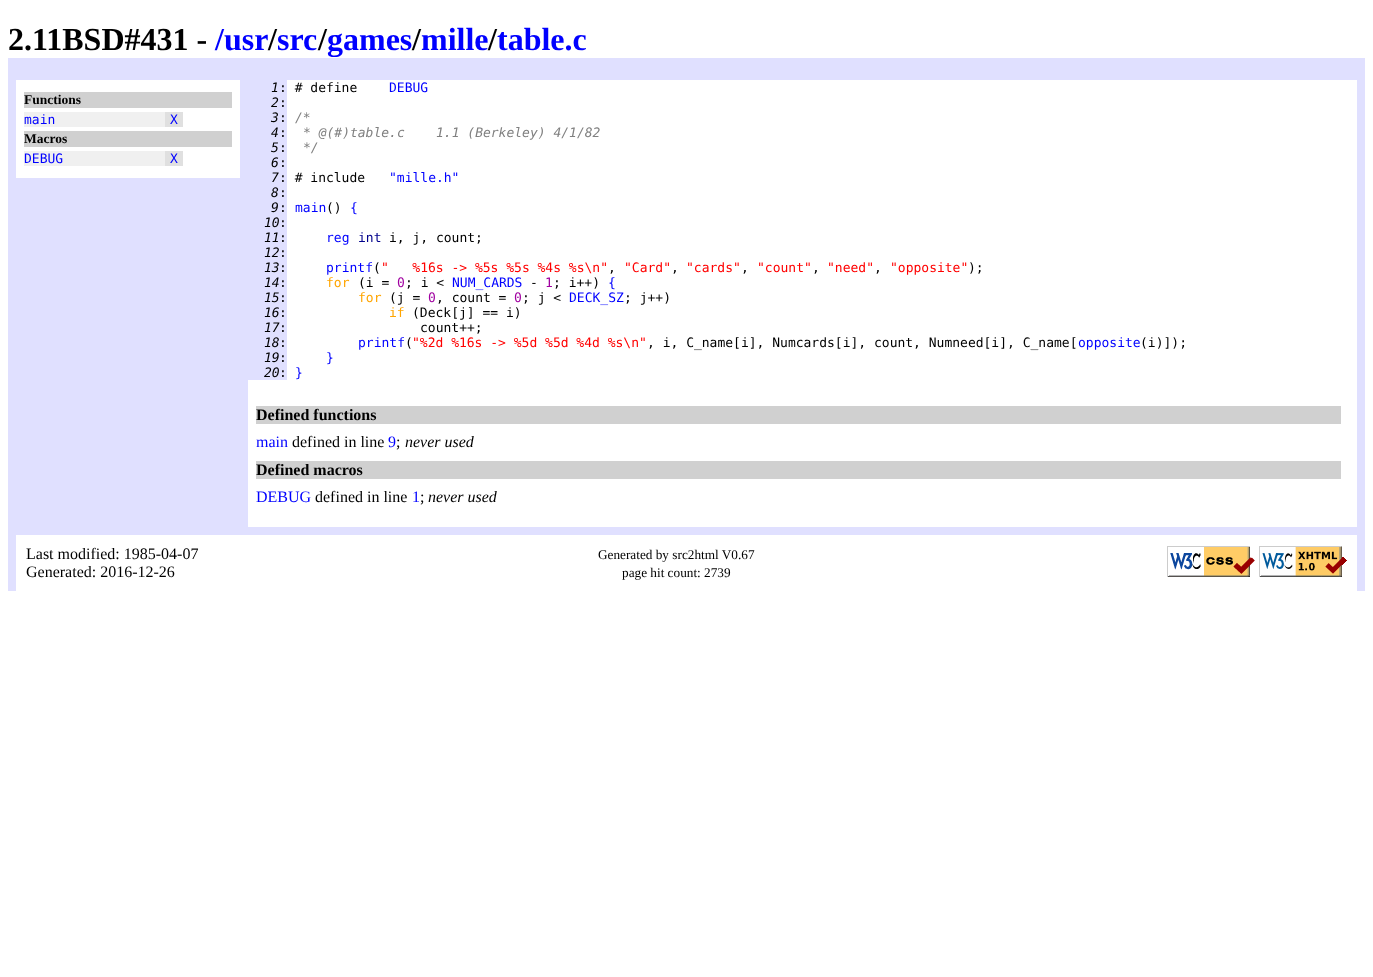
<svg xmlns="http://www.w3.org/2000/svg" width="1373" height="977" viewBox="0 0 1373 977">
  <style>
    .t1 { font: bold 32px Liberation Serif; fill: #000; }
    .t2 { font: bold 32px Liberation Serif; fill: #00f; }
    .t3 { font: bold 13.5px Liberation Serif; fill: #000; }
    .t4 { font: 13px DejaVu Sans Mono; fill: #00f; }
    .t5 { font: italic 13px DejaVu Sans Mono; fill: #000; }
    .t6 { font: 13px DejaVu Sans Mono; fill: #000; }
    .t7 { font: italic 13px DejaVu Sans Mono; fill: #808080; }
    .t8 { font: 13px DejaVu Sans Mono; fill: #00008b; }
    .t9 { font: 13px DejaVu Sans Mono; fill: #f00; }
    .t10 { font: 13px DejaVu Sans Mono; fill: #ffa500; }
    .t11 { font: 13px DejaVu Sans Mono; fill: #a000a0; }
    .t12 { font: bold 16px Liberation Serif; fill: #000; }
    .t13 { font: 16px Liberation Serif; fill: #00f; }
    .t14 { font: 16px Liberation Serif; fill: #000; }
    .t15 { font: italic 16px Liberation Serif; fill: #000; }
    .t16 { font: 13.25px Liberation Serif; fill: #000; }
  </style>
  <rect width="100%" height="100%" fill="#fff"/>
  <rect x="8" y="58" width="1357" height="533" fill="#e0e0ff"/>
  <text x="8" y="50" class="t1">2.11BSD#431 -</text>
  <text x="215" y="50" class="t2">/usr</text>
  <text x="268" y="50" class="t1">/</text>
  <text x="277" y="50" class="t2">src</text>
  <text x="318" y="50" class="t1">/</text>
  <text x="327" y="50" class="t2">games</text>
  <text x="412" y="50" class="t1">/</text>
  <text x="421" y="50" class="t2">mille</text>
  <text x="488" y="50" class="t1">/</text>
  <text x="497" y="50" class="t2">table.c</text>
  <rect x="16" y="80" width="224" height="98" fill="#fff"/>
  <rect x="24" y="92" width="208" height="16" fill="#d0d0d0"/>
  <text x="24" y="104" class="t3">Functions</text>
  <rect x="24" y="112" width="141" height="15" fill="#f0f0f0"/>
  <text x="24" y="124" class="t4">main</text>
  <rect x="165" y="112" width="18" height="15" fill="#e0e0e0"/>
  <text x="170" y="124" class="t4">X</text>
  <rect x="24" y="131" width="208" height="16" fill="#d0d0d0"/>
  <text x="24" y="143" class="t3">Macros</text>
  <rect x="24" y="151" width="141" height="15" fill="#f0f0f0"/>
  <text x="24" y="163" class="t4">DEBUG</text>
  <rect x="165" y="151" width="18" height="15" fill="#e0e0e0"/>
  <text x="170" y="163" class="t4">X</text>
  <rect x="248" y="80" width="1109" height="447" fill="#fff"/>
  <rect x="248" y="80" width="39" height="15" fill="#e0e0ff"/>
  <text x="271" y="92" class="t5">1</text>
  <text x="279" y="92" class="t6">: # define</text>
  <text x="389" y="92" class="t4">DEBUG</text>
  <rect x="248" y="95" width="39" height="15" fill="#e0e0ff"/>
  <text x="271" y="107" class="t5">2</text>
  <text x="279" y="107" class="t6">:</text>
  <rect x="248" y="110" width="39" height="15" fill="#e0e0ff"/>
  <text x="271" y="122" class="t5">3</text>
  <text x="279" y="122" class="t6">:</text>
  <text x="295" y="122" class="t7">/*</text>
  <rect x="248" y="125" width="39" height="15" fill="#e0e0ff"/>
  <text x="271" y="137" class="t5">4</text>
  <text x="279" y="137" class="t6">:</text>
  <text x="303" y="137" class="t7">* @(#)table.c</text>
  <text x="436" y="137" class="t7">1.1 (Berkeley) 4/1/82</text>
  <rect x="248" y="140" width="39" height="15" fill="#e0e0ff"/>
  <text x="271" y="152" class="t5">5</text>
  <text x="279" y="152" class="t6">:</text>
  <text x="303" y="152" class="t7">*/</text>
  <rect x="248" y="155" width="39" height="15" fill="#e0e0ff"/>
  <text x="271" y="167" class="t5">6</text>
  <text x="279" y="167" class="t6">:</text>
  <rect x="248" y="170" width="39" height="15" fill="#e0e0ff"/>
  <text x="271" y="182" class="t5">7</text>
  <text x="279" y="182" class="t6">: # include</text>
  <text x="389" y="182" class="t4">"mille.h"</text>
  <rect x="248" y="185" width="39" height="15" fill="#e0e0ff"/>
  <text x="271" y="197" class="t5">8</text>
  <text x="279" y="197" class="t6">:</text>
  <rect x="248" y="200" width="39" height="15" fill="#e0e0ff"/>
  <text x="271" y="212" class="t5">9</text>
  <text x="279" y="212" class="t6">:</text>
  <text x="295" y="212" class="t4">main</text>
  <text x="326" y="212" class="t6">()</text>
  <text x="350" y="212" class="t4">{</text>
  <rect x="248" y="215" width="39" height="15" fill="#e0e0ff"/>
  <text x="264" y="227" class="t5">10</text>
  <text x="279" y="227" class="t6">:</text>
  <rect x="248" y="230" width="39" height="15" fill="#e0e0ff"/>
  <text x="264" y="242" class="t5">11</text>
  <text x="279" y="242" class="t6">:</text>
  <text x="326" y="242" class="t4">reg</text>
  <text x="358" y="242" class="t8">int</text>
  <text x="389" y="242" class="t6">i, j, count;</text>
  <rect x="248" y="245" width="39" height="15" fill="#e0e0ff"/>
  <text x="264" y="257" class="t5">12</text>
  <text x="279" y="257" class="t6">:</text>
  <rect x="248" y="260" width="39" height="15" fill="#e0e0ff"/>
  <text x="264" y="272" class="t5">13</text>
  <text x="279" y="272" class="t6">:</text>
  <text x="326" y="272" class="t4">printf</text>
  <text x="373" y="272" class="t6">(</text>
  <text x="381" y="272" class="t9" xml:space="preserve">"   %16s -&gt; %5s %5s %4s %s\n"</text>
  <text x="608" y="272" class="t6">,</text>
  <text x="624" y="272" class="t9">"Card"</text>
  <text x="671" y="272" class="t6">,</text>
  <text x="686" y="272" class="t9">"cards"</text>
  <text x="741" y="272" class="t6">,</text>
  <text x="757" y="272" class="t9">"count"</text>
  <text x="812" y="272" class="t6">,</text>
  <text x="827" y="272" class="t9">"need"</text>
  <text x="874" y="272" class="t6">,</text>
  <text x="890" y="272" class="t9">"opposite"</text>
  <text x="968" y="272" class="t6">);</text>
  <rect x="248" y="275" width="39" height="15" fill="#e0e0ff"/>
  <text x="264" y="287" class="t5">14</text>
  <text x="279" y="287" class="t6">:</text>
  <text x="326" y="287" class="t10">for</text>
  <text x="358" y="287" class="t6">(i =</text>
  <text x="397" y="287" class="t11">0</text>
  <text x="405" y="287" class="t6">; i &lt;</text>
  <text x="452" y="287" class="t4">NUM_CARDS</text>
  <text x="530" y="287" class="t6">-</text>
  <text x="545" y="287" class="t11">1</text>
  <text x="553" y="287" class="t6">; i++)</text>
  <text x="608" y="287" class="t4">{</text>
  <rect x="248" y="290" width="39" height="15" fill="#e0e0ff"/>
  <text x="264" y="302" class="t5">15</text>
  <text x="279" y="302" class="t6">:</text>
  <text x="358" y="302" class="t10">for</text>
  <text x="389" y="302" class="t6">(j =</text>
  <text x="428" y="302" class="t11">0</text>
  <text x="436" y="302" class="t6">, count =</text>
  <text x="514" y="302" class="t11">0</text>
  <text x="522" y="302" class="t6">; j &lt;</text>
  <text x="569" y="302" class="t4">DECK_SZ</text>
  <text x="624" y="302" class="t6">; j++)</text>
  <rect x="248" y="305" width="39" height="15" fill="#e0e0ff"/>
  <text x="264" y="317" class="t5">16</text>
  <text x="279" y="317" class="t6">:</text>
  <text x="389" y="317" class="t10">if</text>
  <text x="412" y="317" class="t6">(Deck[j] == i)</text>
  <rect x="248" y="320" width="39" height="15" fill="#e0e0ff"/>
  <text x="264" y="332" class="t5">17</text>
  <text x="279" y="332" class="t6">:</text>
  <text x="420" y="332" class="t6">count++;</text>
  <rect x="248" y="335" width="39" height="15" fill="#e0e0ff"/>
  <text x="264" y="347" class="t5">18</text>
  <text x="279" y="347" class="t6">:</text>
  <text x="358" y="347" class="t4">printf</text>
  <text x="405" y="347" class="t6">(</text>
  <text x="412" y="347" class="t9">"%2d %16s -&gt; %5d %5d %4d %s\n"</text>
  <text x="647" y="347" class="t6">, i, C_name[i], Numcards[i], count, Numneed[i], C_name[</text>
  <text x="1078" y="347" class="t4">opposite</text>
  <text x="1140" y="347" class="t6">(i)]);</text>
  <rect x="248" y="350" width="39" height="15" fill="#e0e0ff"/>
  <text x="264" y="362" class="t5">19</text>
  <text x="279" y="362" class="t6">:</text>
  <text x="326" y="362" class="t4">}</text>
  <rect x="248" y="365" width="39" height="15" fill="#e0e0ff"/>
  <text x="264" y="377" class="t5">20</text>
  <text x="279" y="377" class="t6">:</text>
  <text x="295" y="377" class="t4">}</text>
  <rect x="256" y="406" width="1085" height="18" fill="#d0d0d0"/>
  <text x="256" y="420" class="t12">Defined functions</text>
  <text x="256" y="447" class="t13">main</text>
  <text x="292" y="447" class="t14">defined in line</text>
  <text x="388" y="447" class="t13">9</text>
  <text x="396" y="447" class="t14">;</text>
  <text x="405" y="447" class="t15">never used</text>
  <rect x="256" y="461" width="1085" height="18" fill="#d0d0d0"/>
  <text x="256" y="475" class="t12">Defined macros</text>
  <text x="256" y="502" class="t13">DEBUG</text>
  <text x="315" y="502" class="t14">defined in line</text>
  <text x="412" y="502" class="t13">1</text>
  <text x="420" y="502" class="t14">;</text>
  <text x="428" y="502" class="t15">never used</text>
  <rect x="16" y="535" width="1341" height="56" fill="#fff"/>
  <text x="26" y="559" class="t14">Last modified: 1985-04-07</text>
  <text x="26" y="577" class="t14">Generated: 2016-12-26</text>
  <text x="598" y="559" class="t16">Generated by src2html V0.67</text>
  <text x="622" y="577" class="t16">page hit count: 2739</text>
  <image x="1167" y="546" width="88" height="31" href="images/1.png"/>
  <image x="1259" y="546" width="88" height="31" href="images/2.png"/>
</svg>
